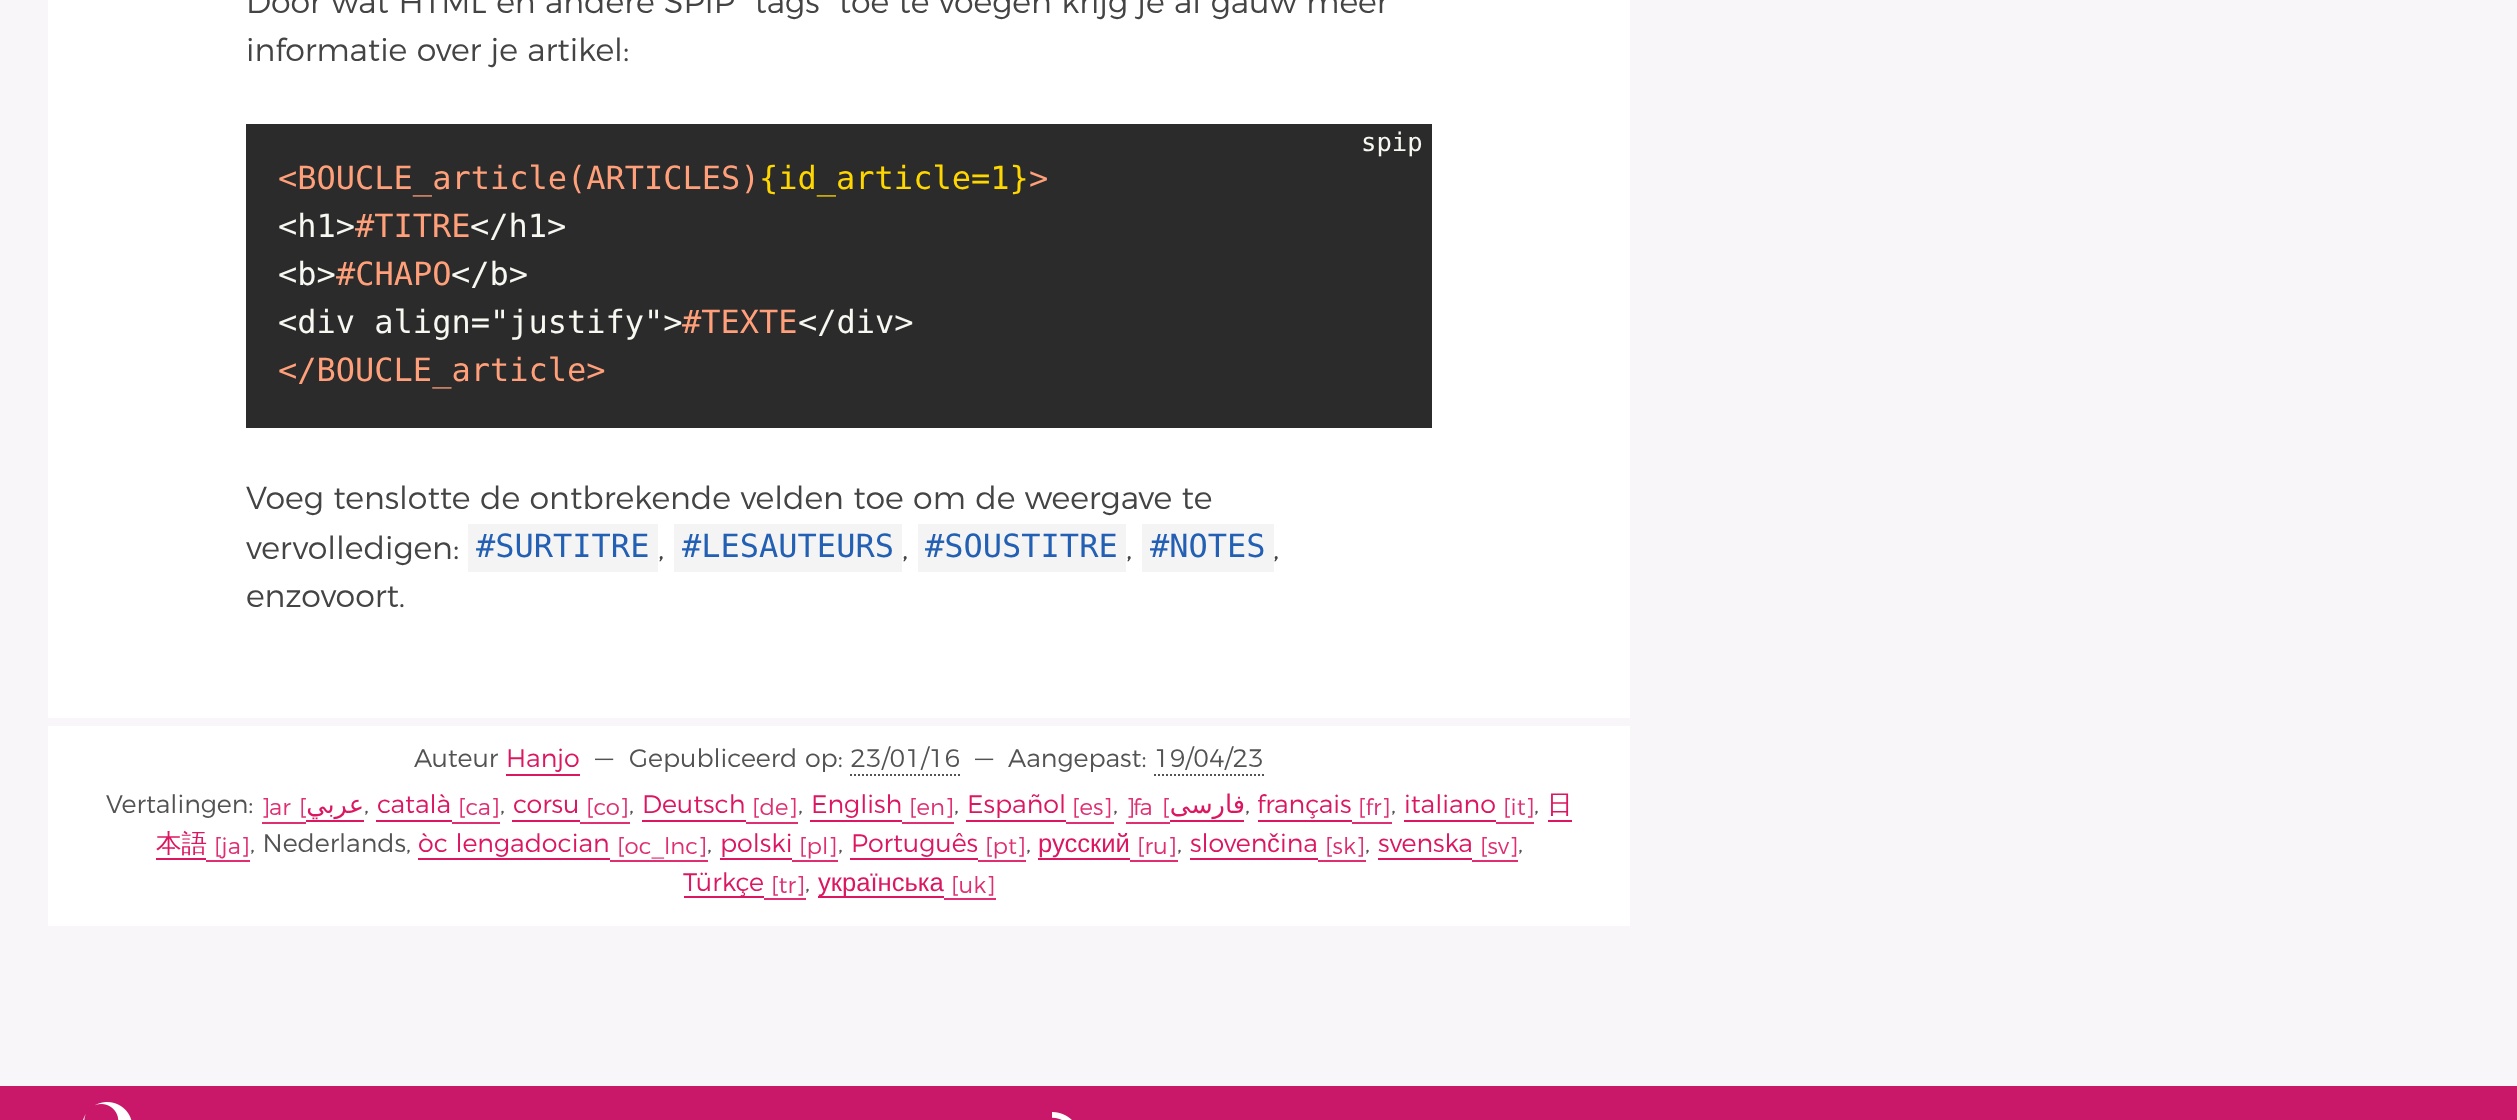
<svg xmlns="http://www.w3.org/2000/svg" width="2517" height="1120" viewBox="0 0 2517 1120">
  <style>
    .t1 { font: 300 32px Montserrat; fill: #444; }
    .t2 { font: 25.6px DejaVu Sans Mono; fill: #f8f8f2; }
    .t3 { font: 32px DejaVu Sans Mono; fill: #ffa07a; }
    .t4 { font: 32px DejaVu Sans Mono; fill: #ffd700; }
    .t5 { font: 32px DejaVu Sans Mono; fill: #f8f8f2; }
    .t6 { font: 32px DejaVu Sans Mono; fill: #2360b4; }
    .t7 { font: 300 25.6px Montserrat; fill: #535353; }
    .t8 { font: 300 25.6px Montserrat; fill: #db1762; }
    .t9 { font: 300 23px Montserrat; fill: #df2e72; }
    .t10 { font: 25.6px DejaVu Sans; direction: rtl; fill: #db1762; }
    .t11 { font: 500 25.6px WenQuanYi Zen Hei; fill: #db1762; }
    .t12 { font: 25.6px Liberation Sans; fill: #db1762; }
  </style>
  <rect width="100%" height="100%" fill="#f8f6f8"/>
  <rect x="48" y="0" width="1582" height="926" fill="#fff"/>
  <text x="246" y="13" class="t1">Door wat HTML en andere SPIP "tags" toe te voegen krijg je al gauw meer</text>
  <text x="246" y="61" class="t1">informatie over je artikel:</text>
  <rect x="246" y="124" width="1186" height="304" fill="#2b2b2b"/>
  <text x="1361" y="151" class="t2">spip</text>
  <text x="278" y="189" class="t3">&lt;BOUCLE_article(ARTICLES)</text>
  <text x="759" y="189" class="t4">{id_article=1}</text>
  <text x="1029" y="189" class="t3">&gt;</text>
  <text x="278" y="237" class="t5">&lt;h1&gt;</text>
  <text x="355" y="237" class="t3">#TITRE</text>
  <text x="470" y="237" class="t5">&lt;/h1&gt;</text>
  <text x="278" y="285" class="t5">&lt;b&gt;</text>
  <text x="336" y="285" class="t3">#CHAPO</text>
  <text x="451" y="285" class="t5">&lt;/b&gt;</text>
  <text x="278" y="333" class="t5">&lt;div align="justify"&gt;</text>
  <text x="682" y="333" class="t3">#TEXTE</text>
  <text x="798" y="333" class="t5">&lt;/div&gt;</text>
  <text x="278" y="381" class="t3">&lt;/BOUCLE_article&gt;</text>
  <text x="246" y="509" class="t1">Voeg tenslotte de ontbrekende velden toe om de weergave te</text>
  <text x="246" y="559" class="t1">vervolledigen:</text>
  <rect x="468" y="524" width="190" height="48" fill="#f4f4f4"/>
  <text x="476" y="557" class="t6">#SURTITRE</text>
  <text x="658" y="559" class="t1">,</text>
  <rect x="674" y="524" width="228" height="48" fill="#f4f4f4"/>
  <text x="682" y="557" class="t6">#LESAUTEURS</text>
  <text x="902" y="559" class="t1">,</text>
  <rect x="918" y="524" width="208" height="48" fill="#f4f4f4"/>
  <text x="925" y="557" class="t6">#SOUSTITRE</text>
  <text x="1126" y="559" class="t1">,</text>
  <rect x="1142" y="524" width="132" height="48" fill="#f4f4f4"/>
  <text x="1150" y="557" class="t6">#NOTES</text>
  <text x="1273" y="559" class="t1">,</text>
  <text x="246" y="607" class="t1">enzovoort.</text>
  <rect x="48" y="718" width="1582" height="8" fill="#f8f6f8"/>
  <text x="414" y="767" class="t7">Auteur</text>
  <text x="506" y="767" class="t8">Hanjo</text>
  <rect x="506" y="774" width="74" height="2" fill="#db1762"/>
  <text x="595" y="767" class="t7">—</text>
  <text x="629" y="767" class="t7">Gepubliceerd op: 23/01/16</text>
  <path d="M850 775H960" fill="none" stroke="#535353" stroke-width="2" stroke-dasharray="2 2"/>
  <text x="975" y="767" class="t7">—</text>
  <text x="1008" y="767" class="t7">Aangepast: 19/04/23</text>
  <path d="M1154 775H1264" fill="none" stroke="#535353" stroke-width="2" stroke-dasharray="2 2"/>
  <text x="106" y="813" class="t7">Vertalingen:</text>
  <text x="261" y="815" class="t9">]</text>
  <text x="269" y="815" class="t9">ar</text>
  <rect x="262" y="822" width="44" height="2" fill="#df2e72"/>
  <text x="299" y="815" class="t9">[</text>
  <text x="364" y="813" class="t10">عربي</text>
  <rect x="306" y="820" width="58" height="2" fill="#db1762"/>
  <text x="364" y="813" class="t7">,</text>
  <text x="377" y="813" class="t8">català</text>
  <rect x="376" y="820" width="76" height="2" fill="#db1762"/>
  <text x="458" y="815" class="t9">[ca]</text>
  <rect x="452" y="822" width="48" height="2" fill="#df2e72"/>
  <text x="500" y="813" class="t7">,</text>
  <text x="513" y="813" class="t8">corsu</text>
  <rect x="512" y="820" width="68" height="2" fill="#db1762"/>
  <text x="586" y="815" class="t9">[co]</text>
  <rect x="580" y="822" width="50" height="2" fill="#df2e72"/>
  <text x="629" y="813" class="t7">,</text>
  <text x="642" y="813" class="t8">Deutsch</text>
  <rect x="642" y="820" width="104" height="2" fill="#db1762"/>
  <text x="752" y="815" class="t9">[de]</text>
  <rect x="746" y="822" width="52" height="2" fill="#df2e72"/>
  <text x="798" y="813" class="t7">,</text>
  <text x="811" y="813" class="t8">English</text>
  <rect x="810" y="820" width="92" height="2" fill="#db1762"/>
  <text x="909" y="815" class="t9">[en]</text>
  <rect x="902" y="822" width="52" height="2" fill="#df2e72"/>
  <text x="954" y="813" class="t7">,</text>
  <text x="967" y="813" class="t8">Español</text>
  <rect x="966" y="820" width="100" height="2" fill="#db1762"/>
  <text x="1072" y="815" class="t9">[es]</text>
  <rect x="1066" y="822" width="48" height="2" fill="#df2e72"/>
  <text x="1113" y="813" class="t7">,</text>
  <text x="1126" y="815" class="t9">]</text>
  <rect x="1126" y="822" width="44" height="2" fill="#df2e72"/>
  <text x="1133" y="815" class="t9">fa</text>
  <text x="1162" y="815" class="t9">[</text>
  <rect x="1170" y="820" width="74" height="2" fill="#db1762"/>
  <text x="1245" y="813" class="t10">فارسى</text>
  <text x="1245" y="813" class="t7">,</text>
  <text x="1257" y="813" class="t8">français</text>
  <rect x="1258" y="820" width="94" height="2" fill="#db1762"/>
  <text x="1358" y="815" class="t9">[fr]</text>
  <rect x="1352" y="822" width="40" height="2" fill="#df2e72"/>
  <text x="1391" y="813" class="t7">,</text>
  <text x="1404" y="813" class="t8">italiano</text>
  <rect x="1404" y="820" width="92" height="2" fill="#db1762"/>
  <text x="1503" y="815" class="t9">[it]</text>
  <rect x="1496" y="822" width="38" height="2" fill="#df2e72"/>
  <text x="1534" y="813" class="t7">,</text>
  <text x="1547" y="813" class="t11">日</text>
  <rect x="1548" y="820" width="24" height="2" fill="#db1762"/>
  <text x="156" y="852" class="t11">本語</text>
  <rect x="156" y="858" width="50" height="2" fill="#db1762"/>
  <text x="214" y="854" class="t9">[ja]</text>
  <rect x="206" y="860" width="44" height="2" fill="#df2e72"/>
  <text x="250" y="852" class="t7">, Nederlands,</text>
  <text x="418" y="852" class="t8">òc lengadocian</text>
  <rect x="418" y="858" width="192" height="2" fill="#db1762"/>
  <text x="617" y="854" class="t9">[oc_lnc]</text>
  <rect x="610" y="860" width="98" height="2" fill="#df2e72"/>
  <text x="707" y="852" class="t7">,</text>
  <text x="720" y="852" class="t8">polski</text>
  <rect x="720" y="858" width="72" height="2" fill="#db1762"/>
  <text x="799" y="854" class="t9">[pl]</text>
  <rect x="792" y="860" width="46" height="2" fill="#df2e72"/>
  <text x="838" y="852" class="t7">,</text>
  <text x="851" y="852" class="t8">Português</text>
  <rect x="850" y="858" width="128" height="2" fill="#db1762"/>
  <text x="985" y="854" class="t9">[pt]</text>
  <rect x="978" y="860" width="48" height="2" fill="#df2e72"/>
  <text x="1026" y="852" class="t7">,</text>
  <text x="1038" y="852" class="t12">русский</text>
  <rect x="1038" y="858" width="92" height="2" fill="#db1762"/>
  <text x="1137" y="854" class="t9">[ru]</text>
  <rect x="1130" y="860" width="48" height="2" fill="#df2e72"/>
  <text x="1177" y="852" class="t7">,</text>
  <text x="1190" y="852" class="t8">sloven</text>
  <rect x="1190" y="858" width="128" height="2" fill="#db1762"/>
  <text x="1267" y="852" class="t12">č</text>
  <text x="1280" y="852" class="t8">ina</text>
  <text x="1325" y="854" class="t9">[sk]</text>
  <rect x="1318" y="860" width="48" height="2" fill="#df2e72"/>
  <text x="1365" y="852" class="t7">,</text>
  <text x="1378" y="852" class="t8">svenska</text>
  <rect x="1378" y="858" width="94" height="2" fill="#db1762"/>
  <text x="1480" y="854" class="t9">[sv]</text>
  <rect x="1472" y="860" width="46" height="2" fill="#df2e72"/>
  <text x="1518" y="852" class="t7">,</text>
  <rect x="684" y="896" width="80" height="2" fill="#db1762"/>
  <text x="683" y="891" class="t8">Türkçe</text>
  <text x="771" y="893" class="t9">[tr]</text>
  <rect x="764" y="898" width="42" height="2" fill="#df2e72"/>
  <text x="805" y="891" class="t7">,</text>
  <rect x="818" y="896" width="126" height="2" fill="#db1762"/>
  <text x="818" y="891" class="t12">українська</text>
  <text x="951" y="893" class="t9">[uk]</text>
  <rect x="944" y="898" width="52" height="2" fill="#df2e72"/>
  <rect x="0" y="1086" width="2517" height="34" fill="#c91869"/>
  <image x="83" y="1102" width="49" height="18" href="images/1.png"/>
  <image x="1052" y="1112" width="20" height="8" href="images/2.png"/>
</svg>
